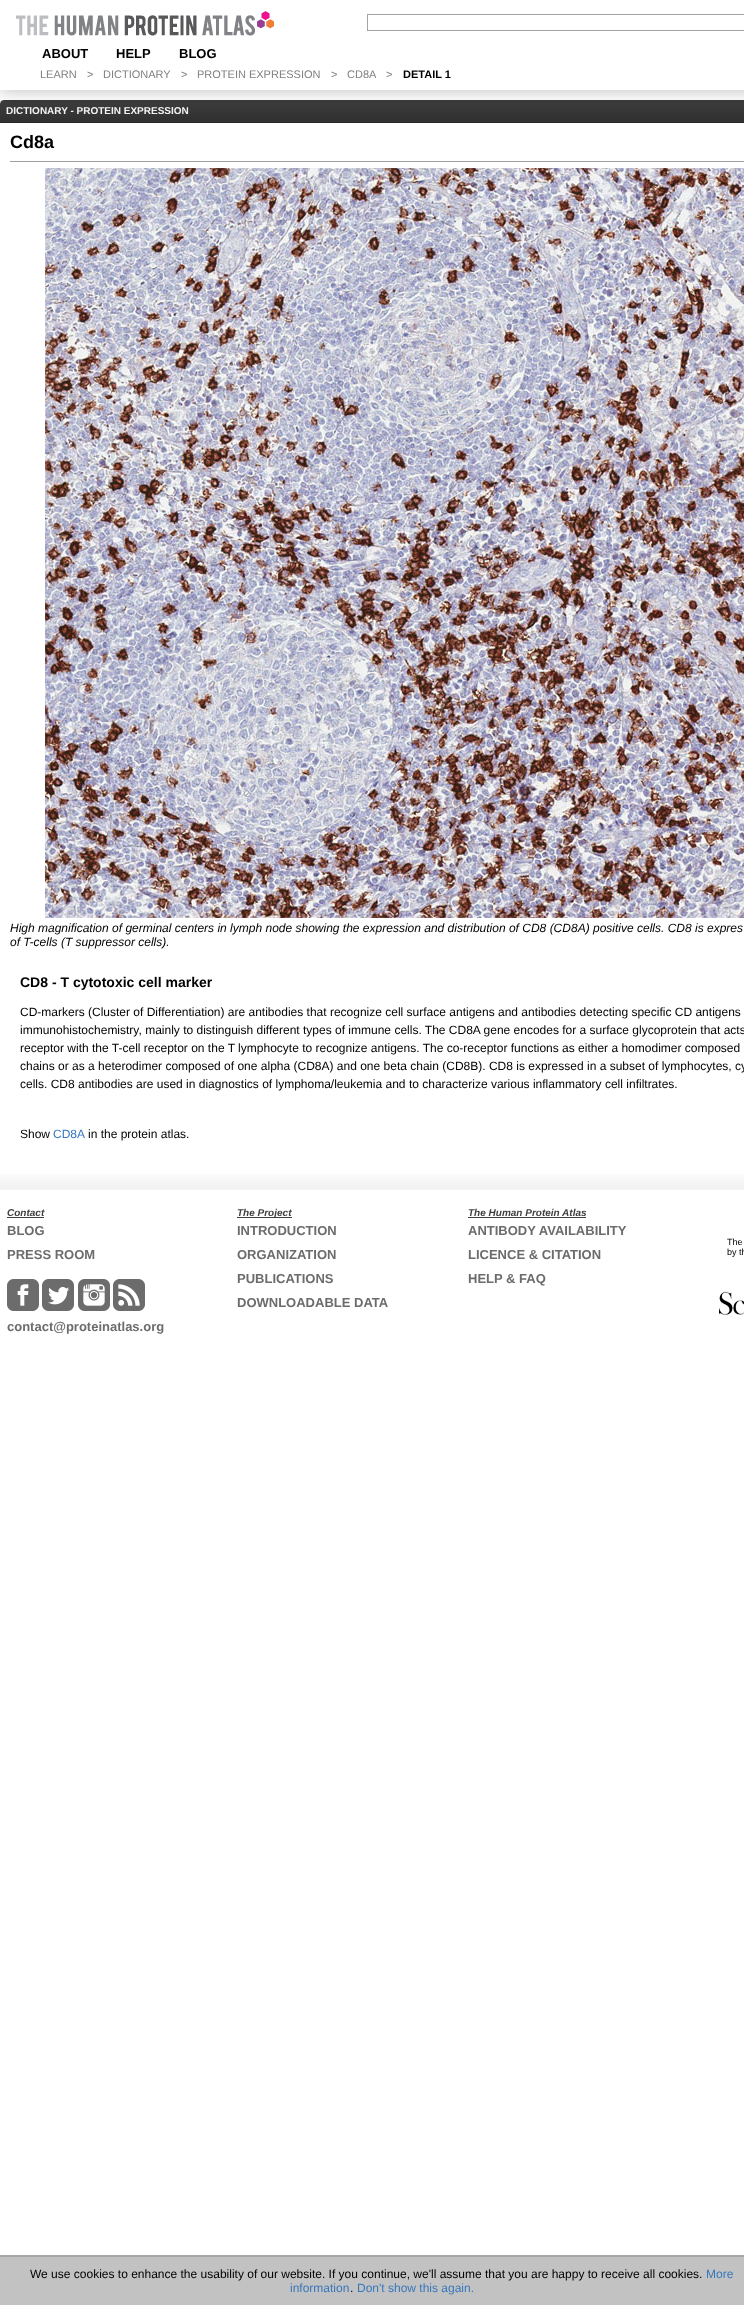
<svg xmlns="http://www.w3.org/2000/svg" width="744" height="2305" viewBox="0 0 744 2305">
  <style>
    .t1 { font: bold 13px Liberation Sans; fill: #000; }
    .t2 { font: 11px Liberation Sans; fill: #808080; }
    .t3 { font: bold 11px Liberation Sans; fill: #000; }
    .t4 { font: bold 10px Liberation Sans; fill: #f2f2f2; }
    .t5 { font: bold 18px Liberation Sans; fill: #000; }
    .t6 { font: italic 12px Liberation Sans; fill: #000; }
    .t7 { font: bold 14px Liberation Sans; fill: #000; }
    .t8 { font: 12px Liberation Sans; fill: #000; }
    .t9 { font: 12px Liberation Sans; fill: #3777bc; }
    .t10 { font: italic bold 10px Liberation Sans; fill: #404040; }
    .t11 { font: bold 13px Liberation Sans; fill: #6c6c6c; }
    .t12 { font: 9px Liberation Sans; fill: #000; }
  </style>
  <rect width="100%" height="100%" fill="#fff"/>
  <image x="0" y="100" width="744" height="23" href="images/3.png"/>
  <image x="0" y="100" width="4" height="4" href="images/4.png"/>
  <rect x="0" y="3" width="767" height="90" fill="#00000033" filter="blur(7.5px)"/>
  <rect x="0" y="0" width="744" height="90" fill="#fff"/>
  <image x="16" y="15" width="239" height="21" href="images/1.png"/>
  <image x="257" y="11" width="17" height="18" href="images/2.png"/>
  <rect x="367.5" y="14.5" width="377" height="16" fill="none" stroke="#a3a3a3"/>
  <text x="42" y="58" class="t1">ABOUT</text>
  <text x="116" y="58" class="t1">HELP</text>
  <text x="179" y="58" class="t1">BLOG</text>
  <text x="40" y="78" class="t2">LEARN</text>
  <text x="87" y="78" class="t2">&gt;</text>
  <text x="103" y="78" class="t2">DICTIONARY</text>
  <text x="181" y="78" class="t2">&gt;</text>
  <text x="197" y="78" class="t2">PROTEIN EXPRESSION</text>
  <text x="331" y="78" class="t2">&gt;</text>
  <text x="347" y="78" class="t2">CD8A</text>
  <text x="386" y="78" class="t2">&gt;</text>
  <text x="403" y="78" class="t3">DETAIL 1</text>
  <text x="6" y="114" class="t4">DICTIONARY - PROTEIN EXPRESSION</text>
  <text x="10" y="148" class="t5">Cd8a</text>
  <rect x="10" y="161" width="734" height="1" fill="#9f9f9f"/>
  <image x="45" y="168" width="699" height="750" href="images/5.png"/>
  <text x="10" y="932" class="t6">High magnification of germinal centers in lymph node showing the expression and distribution of CD8 (CD8A) positive cells. CD8 is expres</text>
  <text x="10" y="946" class="t6">of T-cells (T suppressor cells).</text>
  <text x="20" y="987" class="t7">CD8 - T cytotoxic cell marker</text>
  <text x="20" y="1016" class="t8">CD-markers (Cluster of Differentiation) are antibodies that recognize cell surface antigens and antibodies detecting specific CD antigens</text>
  <text x="20" y="1034" class="t8">immunohistochemistry, mainly to distinguish different types of immune cells. The CD8A gene encodes for a surface glycoprotein that acts</text>
  <text x="20" y="1052" class="t8">receptor with the T-cell receptor on the T lymphocyte to recognize antigens. The co-receptor functions as either a homodimer composed</text>
  <text x="20" y="1070" class="t8">chains or as a heterodimer composed of one alpha (CD8A) and one beta chain (CD8B). CD8 is expressed in a subset of lymphocytes, cy</text>
  <text x="20" y="1088" class="t8">cells. CD8 antibodies are used in diagnostics of lymphoma/leukemia and to characterize various inflammatory cell infiltrates.</text>
  <text x="20" y="1138" class="t8">Show</text>
  <text x="53" y="1138" class="t9">CD8A</text>
  <text x="88" y="1138" class="t8">in the protein atlas.</text>
  <image x="0" y="1174" width="744" height="16" href="images/6.png"/>
  <text x="7" y="1216" class="t10">Contact</text>
  <rect x="7" y="1217" width="37" height="1" fill="#404040"/>
  <text x="7" y="1235" class="t11">BLOG</text>
  <text x="7" y="1259" class="t11">PRESS ROOM</text>
  <image x="7" y="1279" width="32" height="32" href="images/7.png"/>
  <image x="42" y="1279" width="32" height="32" href="images/8.png"/>
  <image x="78" y="1279" width="32" height="32" href="images/9.png"/>
  <image x="113" y="1279" width="32" height="32" href="images/10.png"/>
  <text x="7" y="1331" class="t11">contact@proteinatlas.org</text>
  <rect x="237" y="1217" width="55" height="1" fill="#404040"/>
  <text x="237" y="1216" class="t10">The Project</text>
  <text x="237" y="1235" class="t11">INTRODUCTION</text>
  <text x="237" y="1259" class="t11">ORGANIZATION</text>
  <text x="237" y="1283" class="t11">PUBLICATIONS</text>
  <text x="237" y="1307" class="t11">DOWNLOADABLE DATA</text>
  <text x="468" y="1216" class="t10">The Human Protein Atlas</text>
  <rect x="468" y="1217" width="118" height="1" fill="#404040"/>
  <text x="468" y="1235" class="t11">ANTIBODY AVAILABILITY</text>
  <text x="468" y="1259" class="t11">LICENCE &amp; CITATION</text>
  <text x="468" y="1283" class="t11">HELP &amp; FAQ</text>
  <text x="727" y="1245" class="t12">The</text>
  <text x="727" y="1255" class="t12">by th</text>
  <image x="719" y="1291" width="25" height="25" href="images/11.png"/>
  <rect x="0" y="2257" width="744" height="48" fill="#c2c2c2"/>
  <rect x="0" y="2255" width="744" height="2" fill="#a6a6a6"/>
  <text x="30" y="2278" class="t8">We use cookies to enhance the usability of our website. If you continue, we'll assume that you are happy to receive all cookies.</text>
  <text x="706" y="2278" class="t9">More</text>
  <text x="290" y="2292" class="t9">information</text>
  <text x="350" y="2292" class="t8">.</text>
  <text x="357" y="2292" class="t9">Don't show this again.</text>
</svg>
